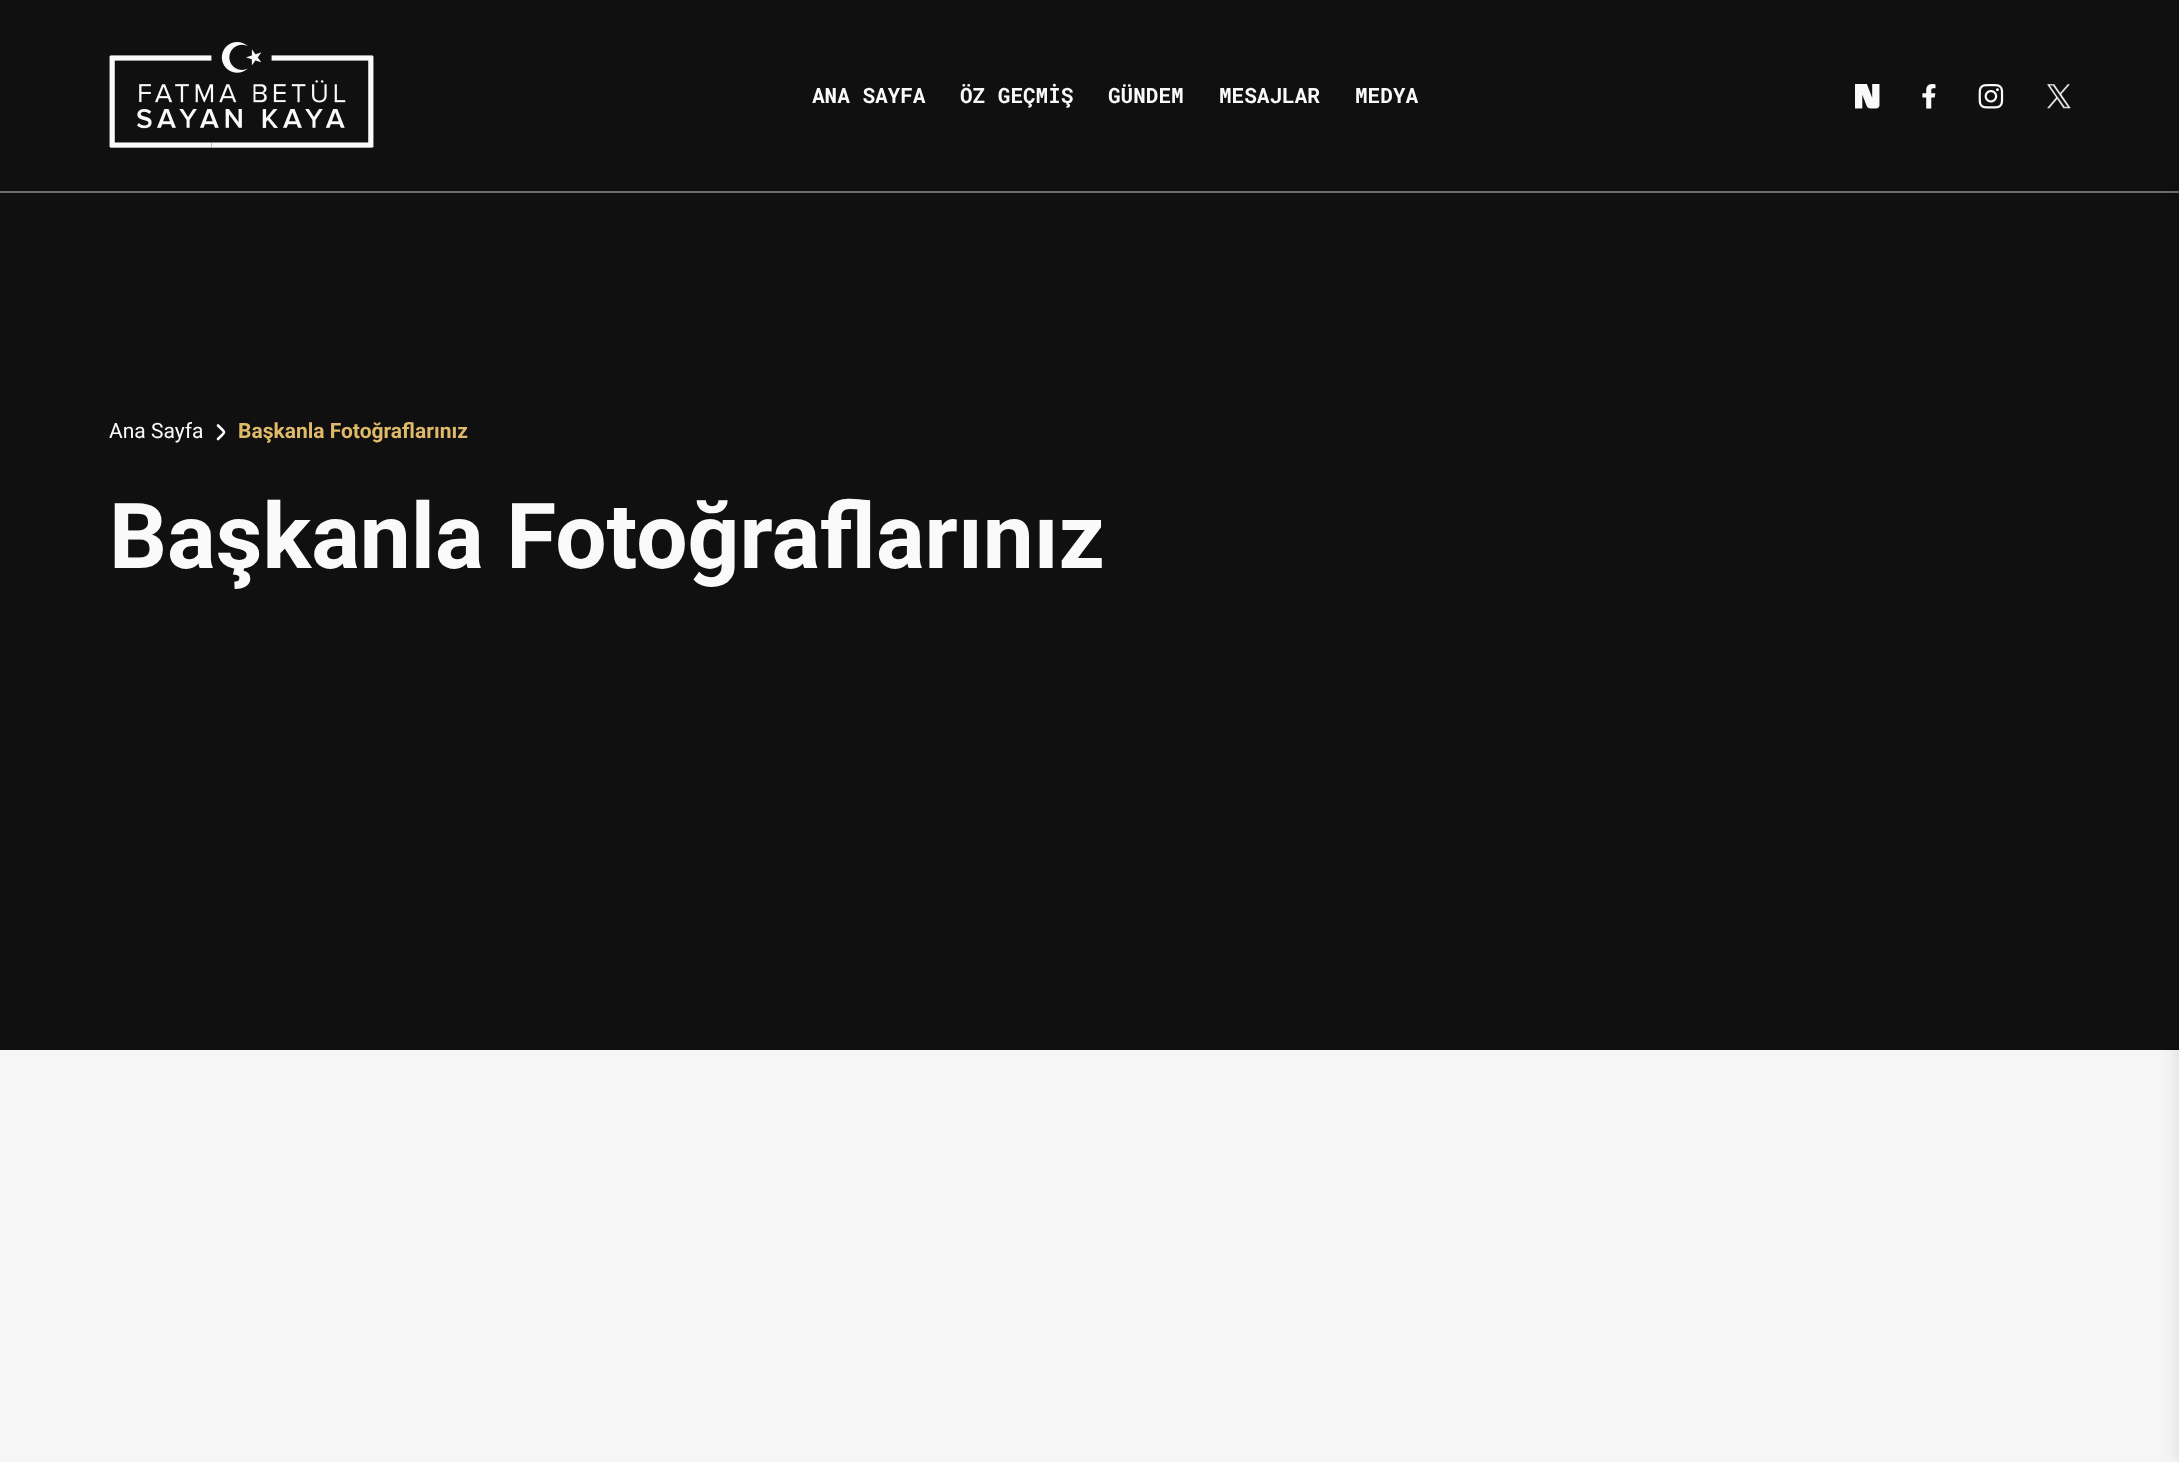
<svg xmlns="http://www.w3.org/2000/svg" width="2179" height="1462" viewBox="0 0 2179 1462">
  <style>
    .t1 { font: bold 21px Roboto Mono; fill: #fafafa; }
    .t2 { font: 21px Roboto; fill: #fafafa; }
    .t3 { font: bold 21px Roboto; fill: #dfba69; }
    .t4 { font: bold 91px Roboto; fill: #fafafa; }
  </style>
  <rect width="100%" height="100%" fill="#f6f6f6"/>
  <rect x="0" y="0" width="2179" height="1050" fill="#101010"/>
  <rect x="0" y="191" width="2179" height="2" fill="#6e6e6e"/>
  <image x="109" y="42" width="265" height="106" href="images/1.png"/>
  <text x="812" y="103" class="t1">ANA SAYFA</text>
  <text x="960" y="103" class="t1">ÖZ GEÇMİŞ</text>
  <text x="1108" y="103" class="t1">GÜNDEM</text>
  <text x="1219" y="103" class="t1">MESAJLAR</text>
  <text x="1355" y="103" class="t1">MEDYA</text>
  <image x="1855" y="84" width="25" height="25" href="images/2.png"/>
  <image x="1922" y="84" width="14" height="25" href="images/3.png"/>
  <image x="1978" y="84" width="26" height="25" href="images/4.png"/>
  <image x="2047" y="84" width="24" height="25" href="images/5.png"/>
  <rect x="2177" y="0" width="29" height="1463" fill="#0000001a" filter="blur(9px)"/>
  <text x="109" y="438" class="t2">Ana Sayfa</text>
  <path d="M218 439C226 431 226 433.5 218 425.5" fill="none" stroke="#fafafa" stroke-width="2.6" stroke-linecap="round" stroke-linejoin="round"/>
  <text x="238" y="438" class="t3">Başkanla Fotoğraflarınız</text>
  <text x="109" y="568" class="t4">Başkanla Fotoğraflarınız</text>
</svg>
